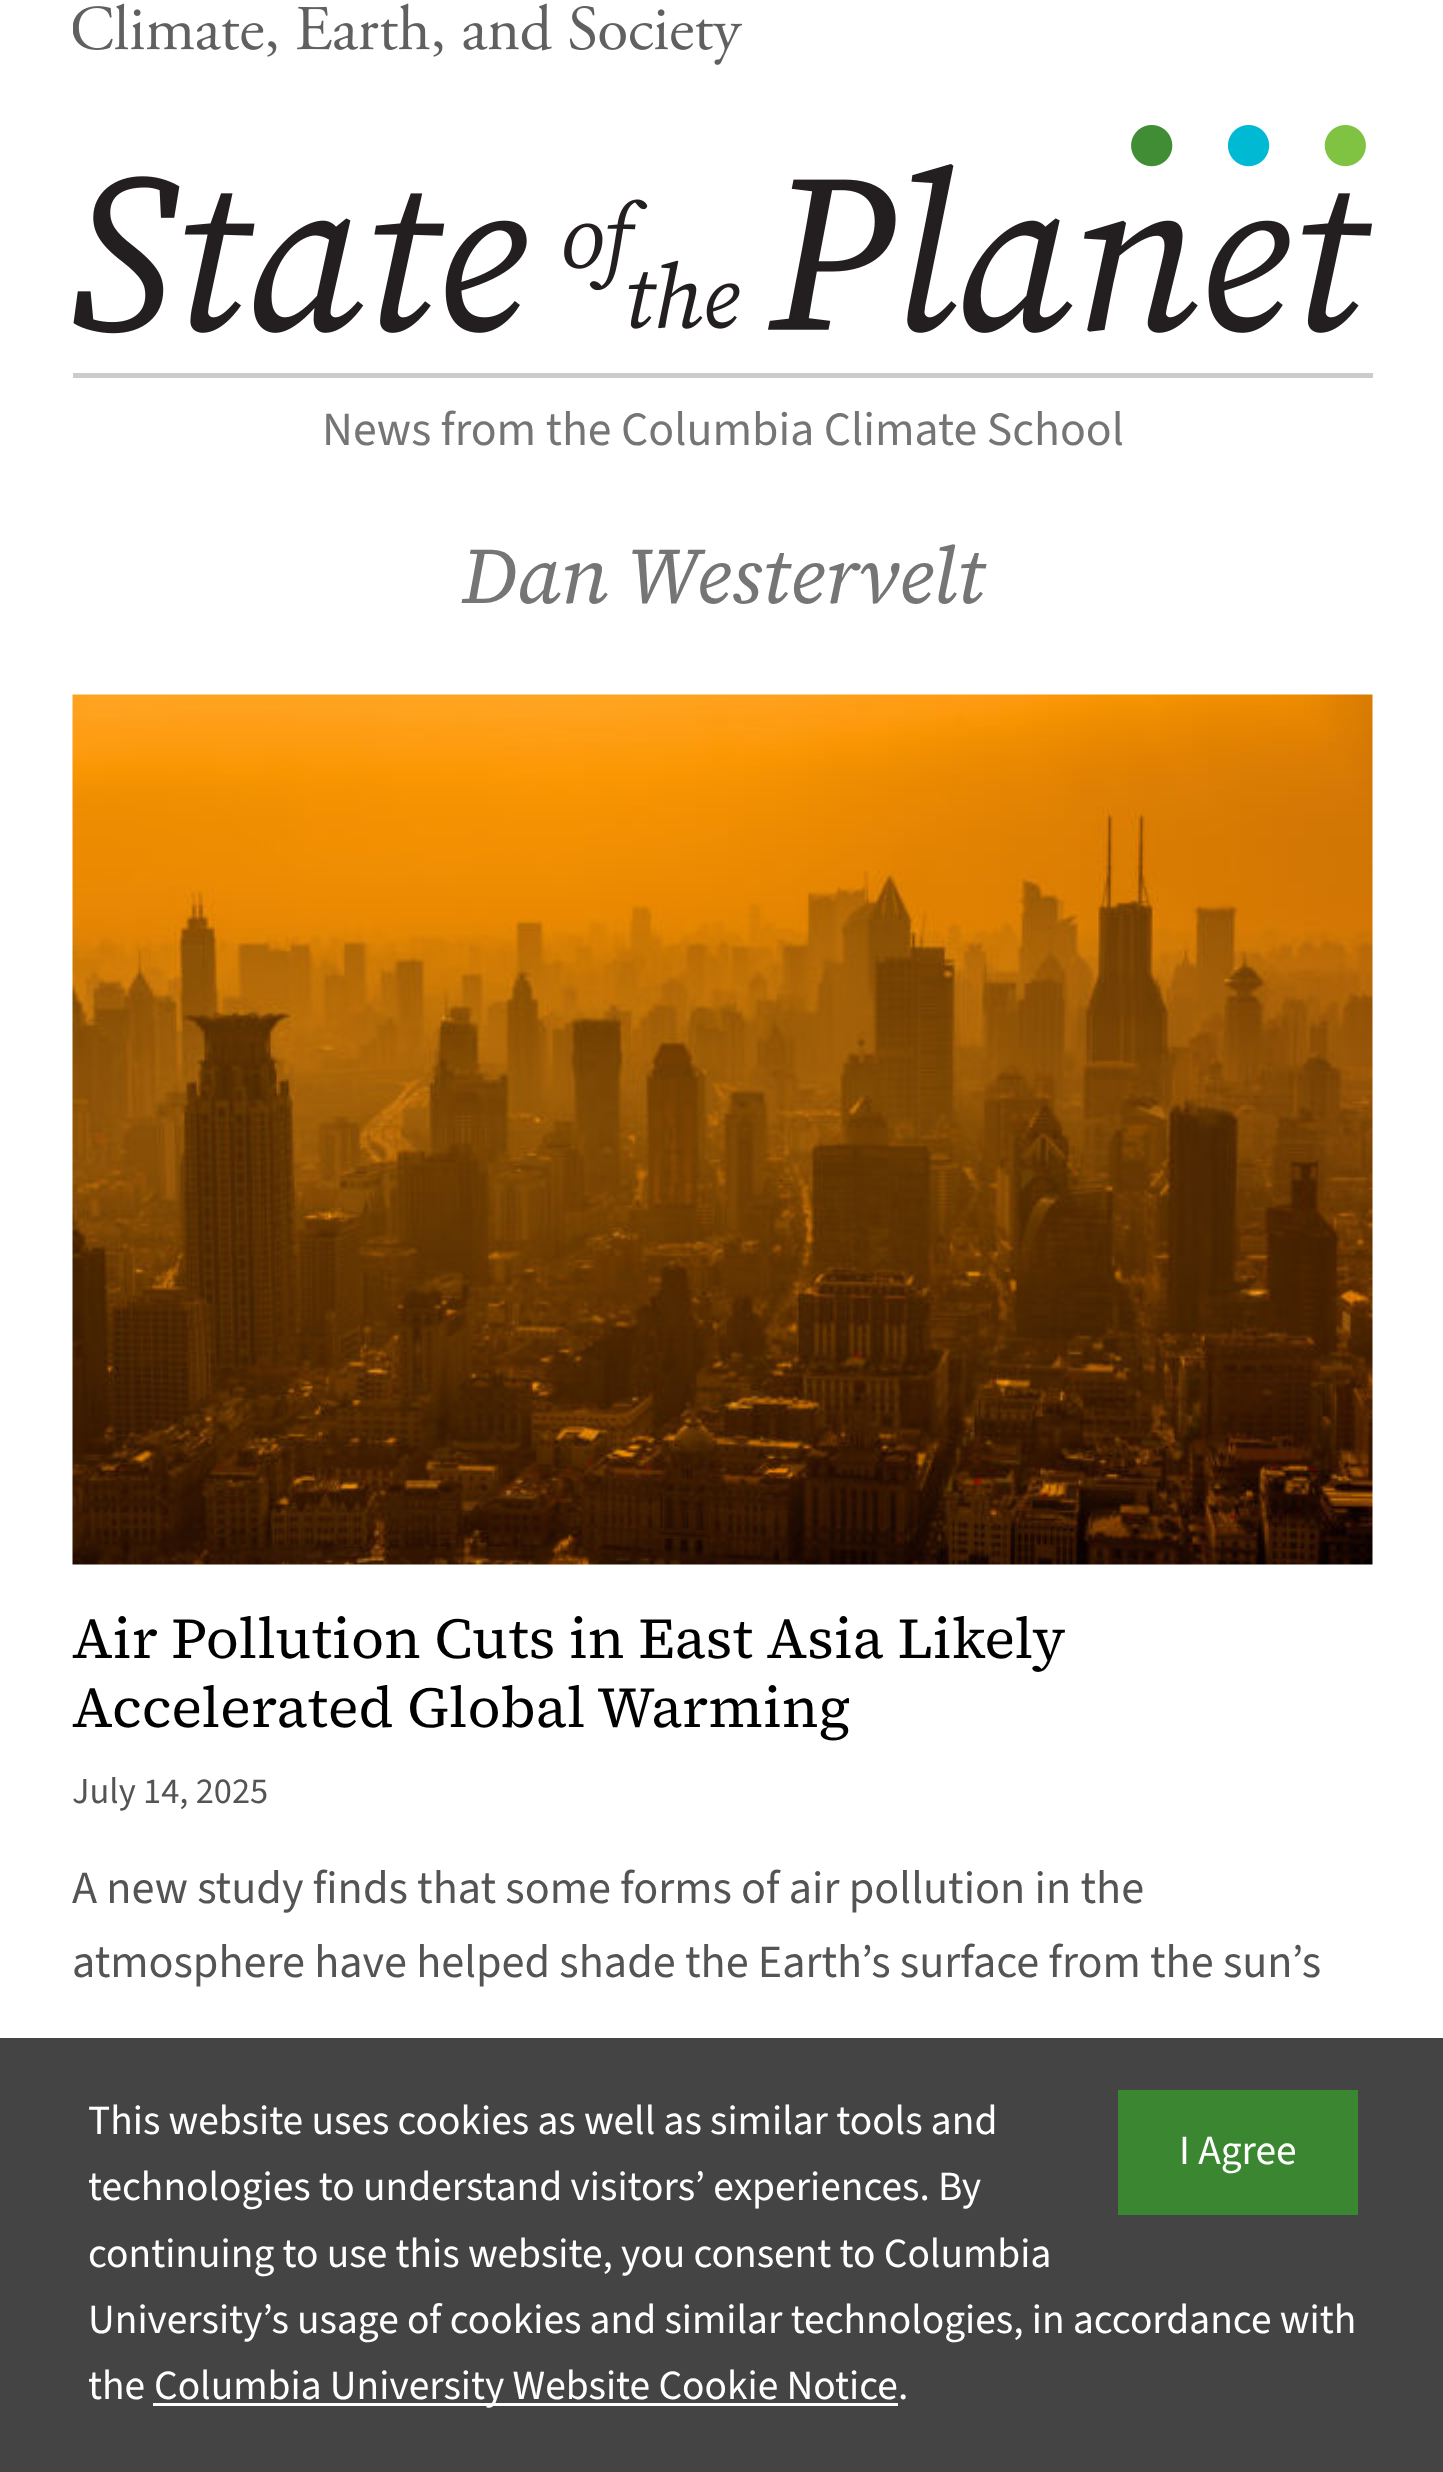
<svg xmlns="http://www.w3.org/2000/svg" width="1443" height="2472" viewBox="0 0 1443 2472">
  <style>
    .t1 { font: 47.75px 'Source Sans 3'; fill: #757575; }
    .t2 { font: italic 79.5px 'Source Serif 4'; fill: #757575; }
    .t3 { font: 57.3px 'Source Serif 4'; fill: #000; }
    .t4 { font: 36.5px 'Source Sans 3'; fill: #545454; }
    .t5 { font: 46.2px 'Source Sans 3'; fill: #545454; }
    .t6 { font: 41.45px 'Source Sans 3'; fill: #fff; }
  </style>
  <rect width="100%" height="100%" fill="#fff"/>
  <image x="73" y="3" width="670" height="62" href="images/1.png"/>
  <image x="73" y="125" width="1299" height="209" href="images/2.png"/>
  <rect x="73" y="373" width="1300" height="5" fill="#ccc"/>
  <text x="322" y="445" class="t1">News from the Columbia Climate School</text>
  <text x="461" y="603" class="t2">Dan Westervelt</text>
  <image x="72" y="694" width="1301" height="871" href="images/3.png"/>
  <text x="72" y="1658" class="t3">Air Pollution Cuts in East Asia Likely</text>
  <text x="72" y="1727" class="t3">Accelerated Global Warming</text>
  <text x="72" y="1803" class="t4">July 14, 2025</text>
  <text x="72" y="1903" class="t5">A new study finds that some forms of air pollution in the</text>
  <text x="72" y="1977" class="t5">atmosphere have helped shade the Earth’s surface from the sun’s</text>
  <rect x="0" y="2038" width="1443" height="434" fill="#444"/>
  <text x="88" y="2134" class="t6">This website uses cookies as well as similar tools and</text>
  <rect x="1118" y="2090" width="240" height="125" fill="#3b8631"/>
  <text x="1179" y="2164" class="t6">I Agree</text>
  <text x="88" y="2200" class="t6">technologies to understand visitors’ experiences. By</text>
  <text x="88" y="2267" class="t6">continuing to use this website, you consent to Columbia</text>
  <text x="88" y="2333" class="t6">University’s usage of cookies and similar technologies, in accordance with</text>
  <text x="88" y="2399" class="t6">the</text>
  <rect x="153" y="2403" width="745" height="3" fill="#fff"/>
  <text x="154" y="2399" class="t6">Columbia University Website Cookie Notice</text>
  <text x="898" y="2399" class="t6">.</text>
</svg>
